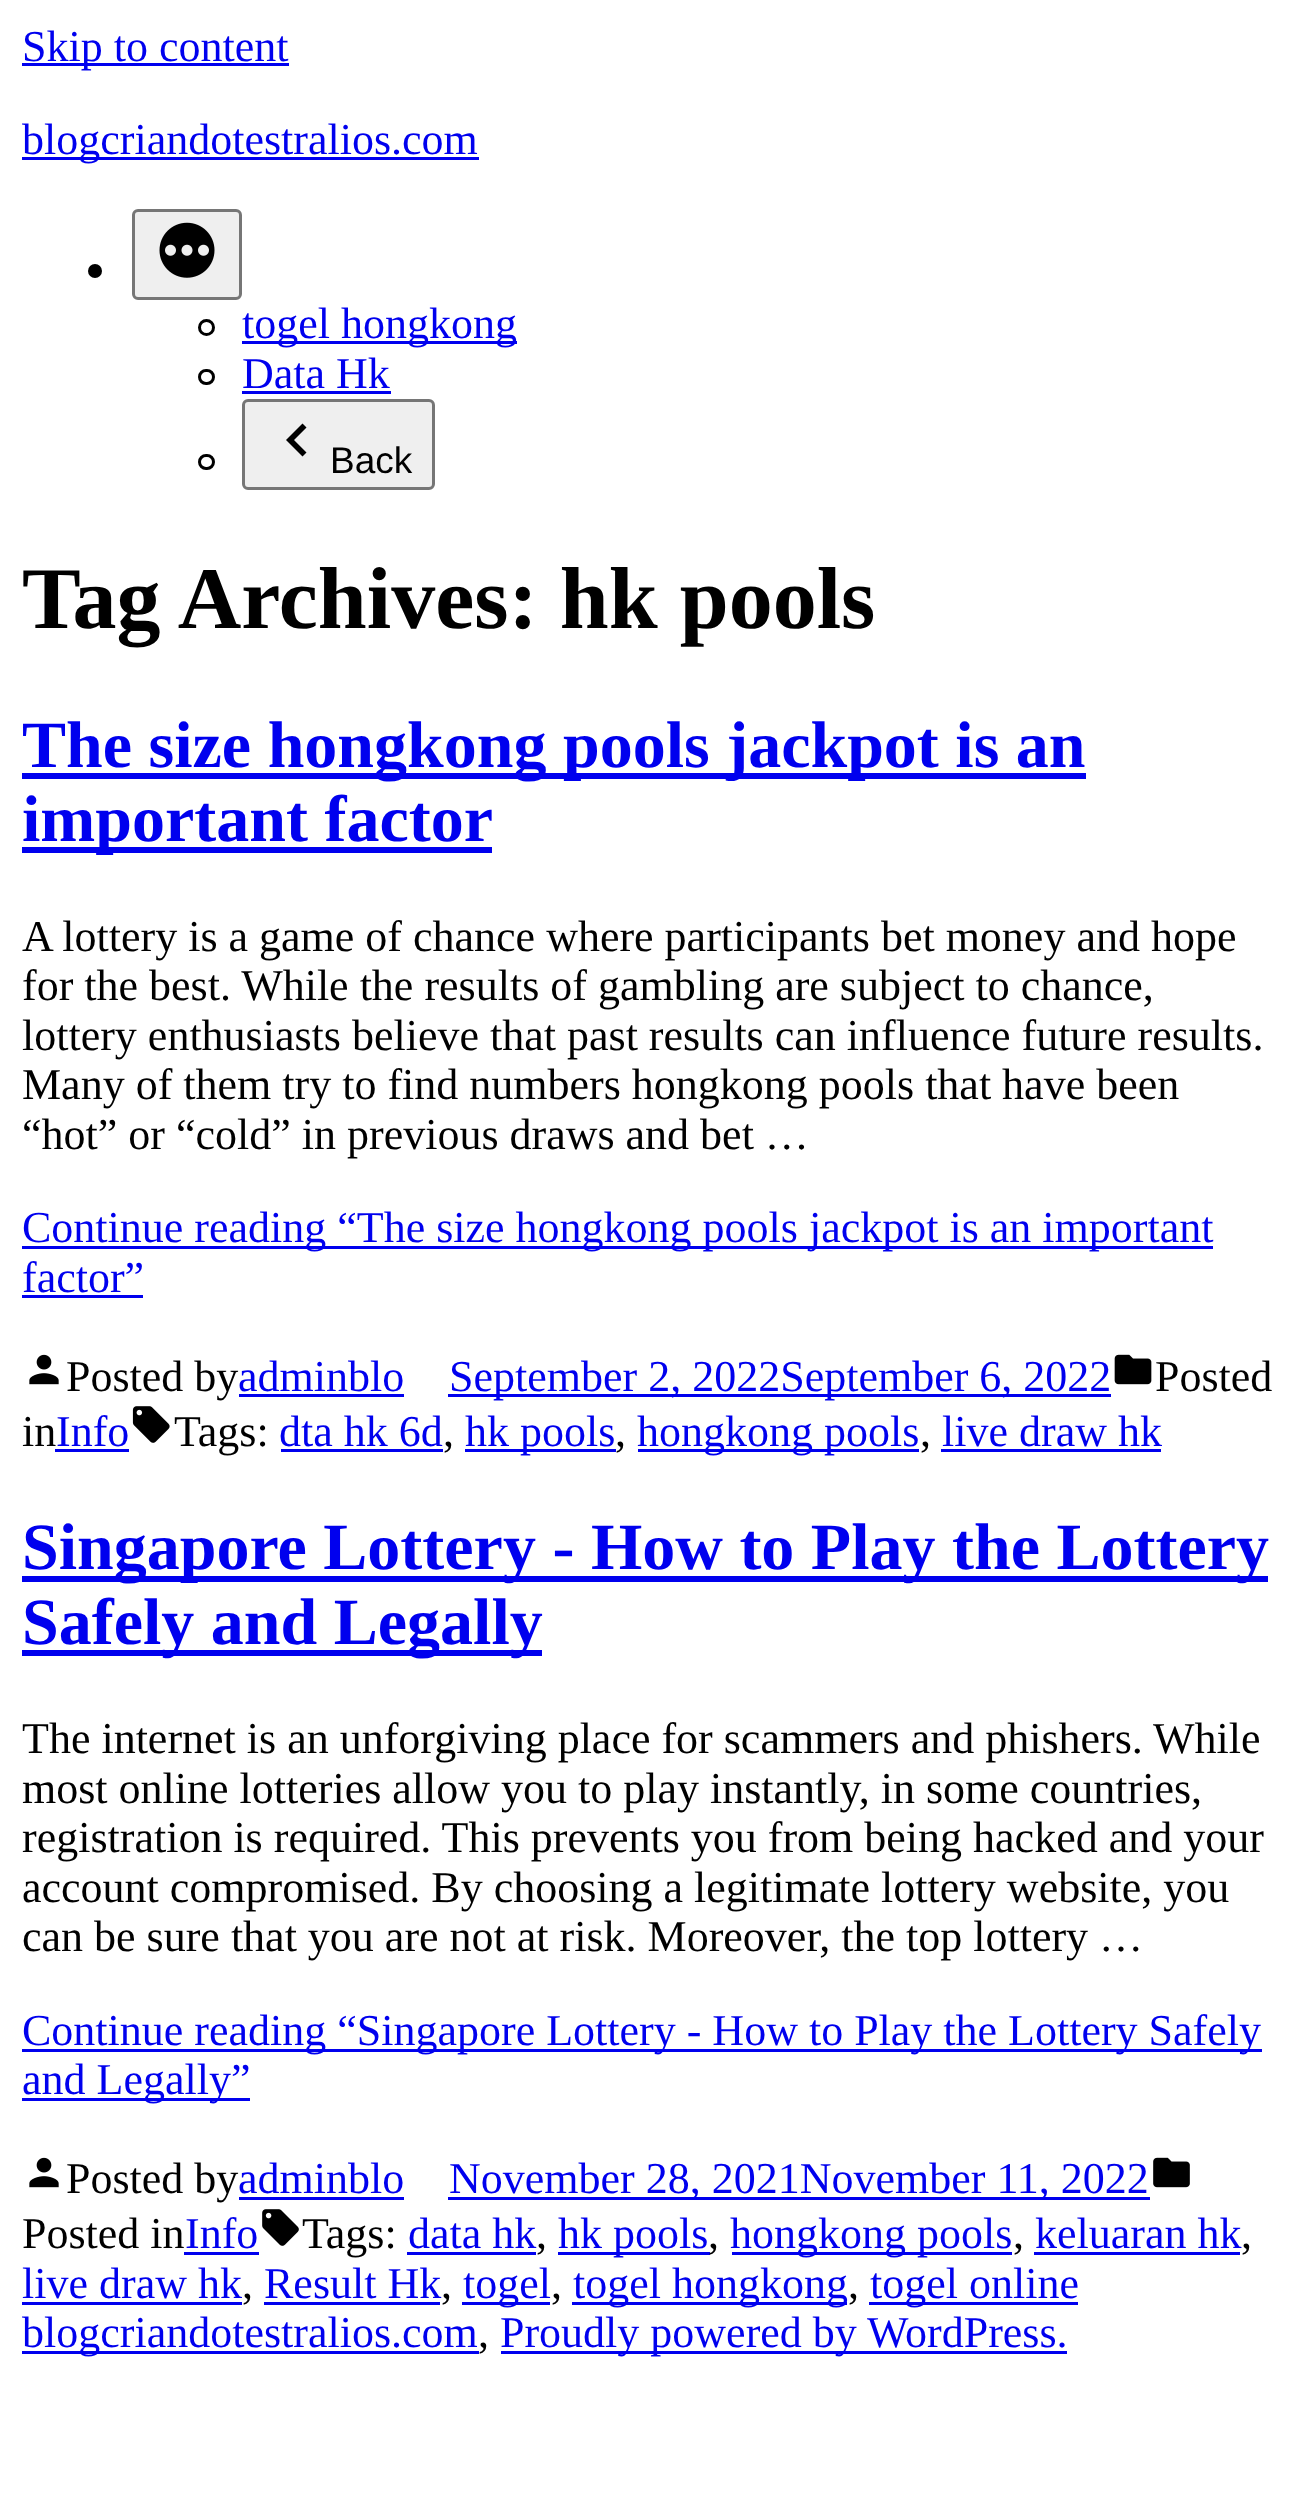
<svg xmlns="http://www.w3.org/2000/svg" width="1297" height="2514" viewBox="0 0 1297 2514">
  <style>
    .t1 { font: 44px Liberation Serif; fill: #00e; }
    .t2 { font: 37px Liberation Sans; fill: #000; }
    .t3 { font: bold 88px Liberation Serif; fill: #000; }
    .t4 { font: bold 66px Liberation Serif; fill: #00e; }
    .t5 { font: 44px Liberation Serif; fill: #000; }
  </style>
  <rect width="100%" height="100%" fill="#fff"/>
  <rect x="22" y="63" width="267" height="3" fill="#00e"/>
  <text x="22" y="61" class="t1">Skip to content</text>
  <rect x="22" y="157" width="457" height="3" fill="#00e"/>
  <text x="22" y="154" class="t1">blogcriandotestralios.com</text>
  <circle cx="95" cy="271" r="7" fill="#000"/>
  <rect x="133.5" y="210.5" width="107" height="88" rx="4.5" fill="#efefef" stroke="#767676" stroke-width="3"/>
  <image x="159" y="222" width="56" height="56" href="images/1.png"/>
  <circle cx="206.5" cy="327.5" r="7" fill="none" stroke="#000" stroke-width="3"/>
  <rect x="242" y="341" width="275" height="3" fill="#00e"/>
  <text x="242" y="338" class="t1">togel hongkong</text>
  <rect x="199.5" y="370.5" width="14" height="13" rx="6.5" fill="none" stroke="#000" stroke-width="3"/>
  <text x="242" y="388" class="t1">Data Hk</text>
  <rect x="242" y="391" width="149" height="3" fill="#00e"/>
  <rect x="199.5" y="455.5" width="14" height="13" rx="6.5" fill="none" stroke="#000" stroke-width="3"/>
  <rect x="243.5" y="400.5" width="190" height="88" rx="4.5" fill="#efefef" stroke="#767676" stroke-width="3"/>
  <path d="M306.5 427.5L302.5 423.5L286 440L302.5 456.5L306.5 452.5L294 440Z" fill="#000"/>
  <text x="330" y="473" class="t2">Back</text>
  <text x="22" y="628" class="t3">Tag Archives: hk pools</text>
  <rect x="22" y="773" width="1064" height="6" fill="#00e"/>
  <text x="22" y="767" class="t4">The size hongkong pools jackpot is an</text>
  <rect x="22" y="847" width="470" height="6" fill="#00e"/>
  <text x="22" y="841" class="t4">important factor</text>
  <text x="22" y="951" class="t5">A lottery is a game of chance where participants bet money and hope</text>
  <text x="22" y="1000" class="t5">for the best. While the results of gambling are subject to chance,</text>
  <text x="22" y="1050" class="t5">lottery enthusiasts believe that past results can influence future results.</text>
  <text x="22" y="1099" class="t5">Many of them try to find numbers hongkong pools that have been</text>
  <text x="22" y="1149" class="t5">“hot” or “cold” in previous draws and bet …</text>
  <rect x="22" y="1246" width="1191" height="3" fill="#00e"/>
  <text x="22" y="1242" class="t1">Continue reading “The size hongkong pools jackpot is an important</text>
  <text x="22" y="1292" class="t1">factor”</text>
  <rect x="22" y="1295" width="121" height="3" fill="#00e"/>
  <image x="29" y="1354" width="30" height="31" href="images/2.png"/>
  <text x="66" y="1391" class="t5">Posted by</text>
  <rect x="239" y="1394" width="165" height="3" fill="#00e"/>
  <text x="238" y="1391" class="t1">adminblo</text>
  <rect x="448" y="1394" width="663" height="3" fill="#00e"/>
  <text x="449" y="1391" class="t1">September 2, 2022September 6, 2022</text>
  <image x="1114" y="1354" width="38" height="31" href="images/3.png"/>
  <text x="1155" y="1391" class="t5">Posted</text>
  <text x="22" y="1446" class="t5">in</text>
  <rect x="55" y="1449" width="74" height="3" fill="#00e"/>
  <text x="56" y="1446" class="t1">Info</text>
  <image x="132" y="1406" width="38" height="37" href="images/4.png"/>
  <text x="174" y="1446" class="t5">Tags:</text>
  <text x="279" y="1446" class="t1">dta hk 6d</text>
  <text x="443" y="1446" class="t5">,</text>
  <rect x="281" y="1449" width="162" height="3" fill="#00e"/>
  <rect x="465" y="1449" width="151" height="3" fill="#00e"/>
  <text x="465" y="1446" class="t1">hk pools</text>
  <text x="615" y="1446" class="t5">,</text>
  <rect x="638" y="1449" width="281" height="3" fill="#00e"/>
  <text x="637" y="1446" class="t1">hongkong pools</text>
  <text x="920" y="1446" class="t5">,</text>
  <rect x="941" y="1449" width="220" height="3" fill="#00e"/>
  <text x="942" y="1446" class="t1">live draw hk</text>
  <rect x="22" y="1576" width="1246" height="6" fill="#00e"/>
  <text x="22" y="1569" class="t4">Singapore Lottery - How to Play the Lottery</text>
  <rect x="22" y="1650" width="520" height="6" fill="#00e"/>
  <text x="22" y="1644" class="t4">Safely and Legally</text>
  <text x="22" y="1753" class="t5">The internet is an unforgiving place for scammers and phishers. While</text>
  <text x="22" y="1803" class="t5">most online lotteries allow you to play instantly, in some countries,</text>
  <text x="22" y="1852" class="t5">registration is required. This prevents you from being hacked and your</text>
  <text x="22" y="1902" class="t5">account compromised. By choosing a legitimate lottery website, you</text>
  <text x="22" y="1951" class="t5">can be sure that you are not at risk. Moreover, the top lottery …</text>
  <rect x="22" y="2049" width="1240" height="3" fill="#00e"/>
  <text x="22" y="2045" class="t1">Continue reading “Singapore Lottery - How to Play the Lottery Safely</text>
  <rect x="22" y="2098" width="228" height="3" fill="#00e"/>
  <text x="22" y="2094" class="t1">and Legally”</text>
  <image x="29" y="2157" width="30" height="31" href="images/2.png"/>
  <text x="66" y="2193" class="t5">Posted by</text>
  <rect x="239" y="2197" width="165" height="3" fill="#00e"/>
  <text x="238" y="2193" class="t1">adminblo</text>
  <rect x="448" y="2197" width="702" height="3" fill="#00e"/>
  <text x="449" y="2193" class="t1">November 28, 2021November 11, 2022</text>
  <image x="1153" y="2157" width="37" height="31" href="images/5.png"/>
  <text x="22" y="2248" class="t5">Posted in</text>
  <rect x="184" y="2252" width="75" height="3" fill="#00e"/>
  <text x="185" y="2248" class="t1">Info</text>
  <image x="262" y="2209" width="37" height="37" href="images/6.png"/>
  <text x="302" y="2248" class="t5">Tags:</text>
  <text x="408" y="2248" class="t1">data hk</text>
  <text x="536" y="2248" class="t5">,</text>
  <rect x="407" y="2252" width="129" height="3" fill="#00e"/>
  <rect x="558" y="2252" width="152" height="3" fill="#00e"/>
  <text x="558" y="2248" class="t1">hk pools</text>
  <text x="708" y="2248" class="t5">,</text>
  <rect x="732" y="2252" width="280" height="3" fill="#00e"/>
  <text x="730" y="2248" class="t1">hongkong pools</text>
  <text x="1013" y="2248" class="t5">,</text>
  <text x="1035" y="2248" class="t1">keluaran hk</text>
  <text x="1241" y="2248" class="t5">,</text>
  <rect x="1034" y="2252" width="206" height="3" fill="#00e"/>
  <text x="22" y="2298" class="t1">live draw hk</text>
  <text x="242" y="2298" class="t5">,</text>
  <rect x="22" y="2302" width="220" height="3" fill="#00e"/>
  <text x="264" y="2298" class="t1">Result Hk</text>
  <text x="441" y="2298" class="t5">,</text>
  <rect x="264" y="2302" width="176" height="3" fill="#00e"/>
  <rect x="462" y="2302" width="88" height="3" fill="#00e"/>
  <text x="463" y="2298" class="t1">togel</text>
  <text x="551" y="2298" class="t5">,</text>
  <rect x="572" y="2302" width="275" height="3" fill="#00e"/>
  <text x="573" y="2298" class="t1">togel hongkong</text>
  <text x="848" y="2298" class="t5">,</text>
  <rect x="869" y="2302" width="209" height="3" fill="#00e"/>
  <text x="870" y="2298" class="t1">togel online</text>
  <rect x="22" y="2351" width="457" height="3" fill="#00e"/>
  <text x="22" y="2347" class="t1">blogcriandotestralios.com</text>
  <text x="478" y="2347" class="t5">,</text>
  <rect x="501" y="2351" width="566" height="3" fill="#00e"/>
  <text x="500" y="2347" class="t1">Proudly powered by WordPress.</text>
</svg>
